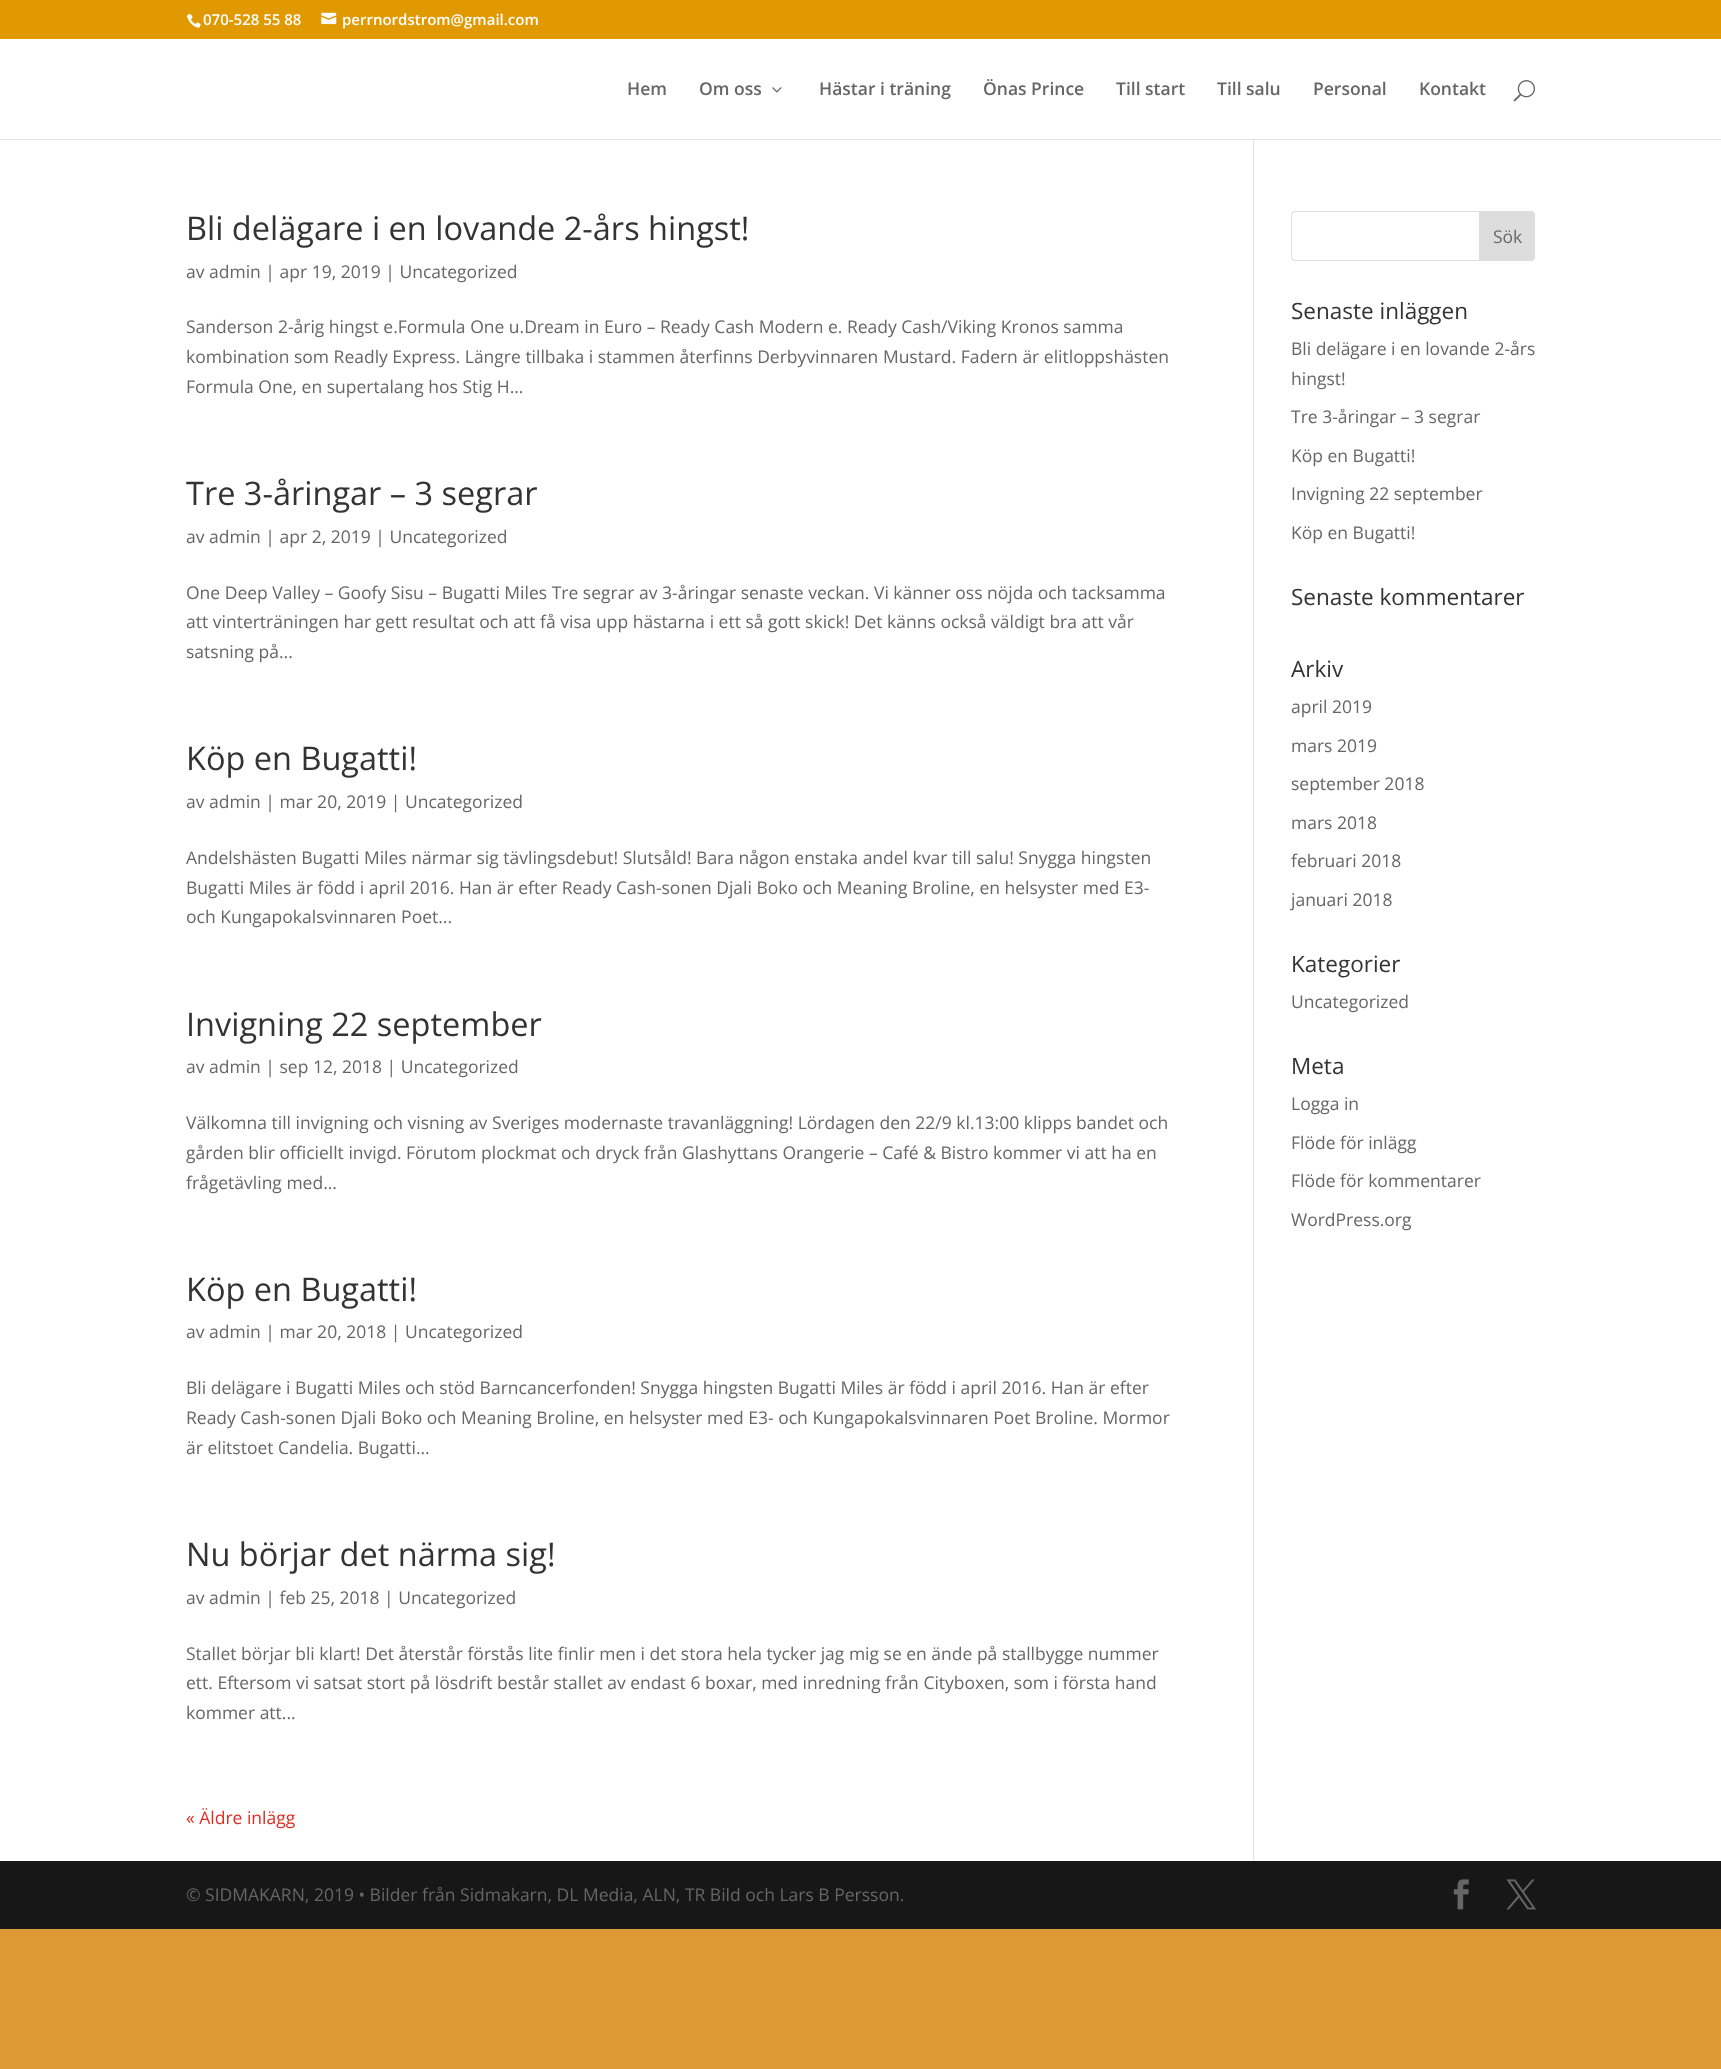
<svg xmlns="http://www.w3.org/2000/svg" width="1721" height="2069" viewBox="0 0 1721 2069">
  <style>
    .t1 { font: 600 15px Open Sans; fill: #fff; }
    .t2 { font: 600 17.5px Open Sans; fill: #666; }
    .t3 { font: 32.5px Open Sans; fill: #333; }
    .t4 { font: 17.5px Open Sans; fill: #666; }
    .t5 { font: 17.5px Open Sans; fill: #e02b20; }
    .t6 { font: 22.5px Open Sans; fill: #333; }
  </style>
  <rect width="100%" height="100%" fill="#d93"/>
  <rect x="0" y="0" width="1721" height="39" fill="#e09900"/>
  <image x="186" y="14" width="15" height="14" href="images/1.png"/>
  <text x="203" y="25" class="t1">070-528 55 88</text>
  <image x="321" y="12" width="16" height="13" href="images/2.png"/>
  <text x="342" y="25" class="t1">perrnordstrom@gmail.com</text>
  <rect x="0" y="39" width="1721" height="100" fill="#fff"/>
  <text x="627" y="95" class="t2">Hem</text>
  <text x="699" y="95" class="t2">Om oss</text>
  <image x="772" y="87" width="10" height="6" href="images/3.png"/>
  <text x="819" y="95" class="t2">Hästar i träning</text>
  <text x="983" y="95" class="t2">Önas Prince</text>
  <text x="1116" y="95" class="t2">Till start</text>
  <text x="1217" y="95" class="t2">Till salu</text>
  <text x="1313" y="95" class="t2">Personal</text>
  <text x="1419" y="95" class="t2">Kontakt</text>
  <image x="1513" y="80" width="22" height="22" href="images/4.png"/>
  <rect x="0" y="140" width="1721" height="1721" fill="#fff"/>
  <rect x="0" y="139" width="1721" height="1" fill="#e6e6e6"/>
  <rect x="1253" y="139" width="1" height="1722" fill="#e2e2e2"/>
  <rect x="1253" y="139" width="1" height="1" fill="#cbcbcb"/>
  <text x="186" y="240" class="t3">Bli delägare i en lovande 2-års hingst!</text>
  <text x="186" y="278" class="t4">av admin | apr 19, 2019 | Uncategorized</text>
  <text x="186" y="333" class="t4">Sanderson 2-årig hingst e.Formula One u.Dream in Euro – Ready Cash Modern e. Ready Cash/Viking Kronos samma</text>
  <text x="186" y="363" class="t4">kombination som Readly Express. Längre tillbaka i stammen återfinns Derbyvinnaren Mustard. Fadern är elitloppshästen</text>
  <text x="186" y="393" class="t4">Formula One, en supertalang hos Stig H...</text>
  <text x="186" y="505" class="t3">Tre 3-åringar – 3 segrar</text>
  <text x="186" y="543" class="t4">av admin | apr 2, 2019 | Uncategorized</text>
  <text x="186" y="599" class="t4">One Deep Valley – Goofy Sisu – Bugatti Miles Tre segrar av 3-åringar senaste veckan. Vi känner oss nöjda och tacksamma</text>
  <text x="186" y="628" class="t4">att vinterträningen har gett resultat och att få visa upp hästarna i ett så gott skick! Det känns också väldigt bra att vår</text>
  <text x="186" y="658" class="t4">satsning på...</text>
  <text x="186" y="770" class="t3">Köp en Bugatti!</text>
  <text x="186" y="808" class="t4">av admin | mar 20, 2019 | Uncategorized</text>
  <text x="186" y="864" class="t4">Andelshästen Bugatti Miles närmar sig tävlingsdebut! Slutsåld! Bara någon enstaka andel kvar till salu! Snygga hingsten</text>
  <text x="186" y="894" class="t4">Bugatti Miles är född i april 2016. Han är efter Ready Cash-sonen Djali Boko och Meaning Broline, en helsyster med E3-</text>
  <text x="186" y="923" class="t4">och Kungapokalsvinnaren Poet...</text>
  <text x="186" y="1036" class="t3">Invigning 22 september</text>
  <text x="186" y="1073" class="t4">av admin | sep 12, 2018 | Uncategorized</text>
  <text x="186" y="1129" class="t4">Välkomna till invigning och visning av Sveriges modernaste travanläggning! Lördagen den 22/9 kl.13:00 klipps bandet och</text>
  <text x="186" y="1159" class="t4">gården blir officiellt invigd. Förutom plockmat och dryck från Glashyttans Orangerie – Café &amp; Bistro kommer vi att ha en</text>
  <text x="186" y="1189" class="t4">frågetävling med...</text>
  <text x="186" y="1301" class="t3">Köp en Bugatti!</text>
  <text x="186" y="1338" class="t4">av admin | mar 20, 2018 | Uncategorized</text>
  <text x="186" y="1394" class="t4">Bli delägare i Bugatti Miles och stöd Barncancerfonden! Snygga hingsten Bugatti Miles är född i april 2016. Han är efter</text>
  <text x="186" y="1424" class="t4">Ready Cash-sonen Djali Boko och Meaning Broline, en helsyster med E3- och Kungapokalsvinnaren Poet Broline. Mormor</text>
  <text x="186" y="1454" class="t4">är elitstoet Candelia. Bugatti...</text>
  <text x="186" y="1566" class="t3">Nu börjar det närma sig!</text>
  <text x="186" y="1604" class="t4">av admin | feb 25, 2018 | Uncategorized</text>
  <text x="186" y="1660" class="t4">Stallet börjar bli klart! Det återstår förstås lite finlir men i det stora hela tycker jag mig se en ände på stallbygge nummer</text>
  <text x="186" y="1689" class="t4">ett. Eftersom vi satsat stort på lösdrift består stallet av endast 6 boxar, med inredning från Cityboxen, som i första hand</text>
  <text x="186" y="1719" class="t4">kommer att...</text>
  <text x="186" y="1824" class="t5">« Äldre inlägg</text>
  <rect x="1291.5" y="211.5" width="243" height="49" rx="3.5" fill="none" stroke="#ddd"/>
  <path d="M1479.5 211.5H1531C1533 211.5 1534.5 213 1534.5 215V257C1534.5 259 1533 260.5 1531 260.5H1479.5Z" fill="#ddd" stroke="#ddd"/>
  <text x="1493" y="243" class="t4">Sök</text>
  <text x="1291" y="319" class="t6">Senaste inläggen</text>
  <text x="1291" y="355" class="t4">Bli delägare i en lovande 2-års</text>
  <text x="1291" y="385" class="t4">hingst!</text>
  <text x="1291" y="423" class="t4">Tre 3-åringar – 3 segrar</text>
  <text x="1291" y="462" class="t4">Köp en Bugatti!</text>
  <text x="1291" y="500" class="t4">Invigning 22 september</text>
  <text x="1291" y="539" class="t4">Köp en Bugatti!</text>
  <text x="1291" y="605" class="t6">Senaste kommentarer</text>
  <text x="1291" y="677" class="t6">Arkiv</text>
  <text x="1291" y="713" class="t4">april 2019</text>
  <text x="1291" y="752" class="t4">mars 2019</text>
  <text x="1291" y="790" class="t4">september 2018</text>
  <text x="1291" y="829" class="t4">mars 2018</text>
  <text x="1291" y="867" class="t4">februari 2018</text>
  <text x="1291" y="906" class="t4">januari 2018</text>
  <text x="1291" y="972" class="t6">Kategorier</text>
  <text x="1291" y="1008" class="t4">Uncategorized</text>
  <text x="1291" y="1074" class="t6">Meta</text>
  <text x="1291" y="1110" class="t4">Logga in</text>
  <text x="1291" y="1149" class="t4">Flöde för inlägg</text>
  <text x="1291" y="1187" class="t4">Flöde för kommentarer</text>
  <text x="1291" y="1226" class="t4">WordPress.org</text>
  <rect x="0" y="1861" width="1721" height="68" fill="#171717"/>
  <text x="186" y="1901" class="t4">© SIDMAKARN, 2019 • Bilder från Sidmakarn, DL Media, ALN, TR Bild och Lars B Persson.</text>
  <image x="1453" y="1879" width="16" height="31" href="images/5.png"/>
  <image x="1506" y="1879" width="30" height="31" href="images/6.png"/>
</svg>
